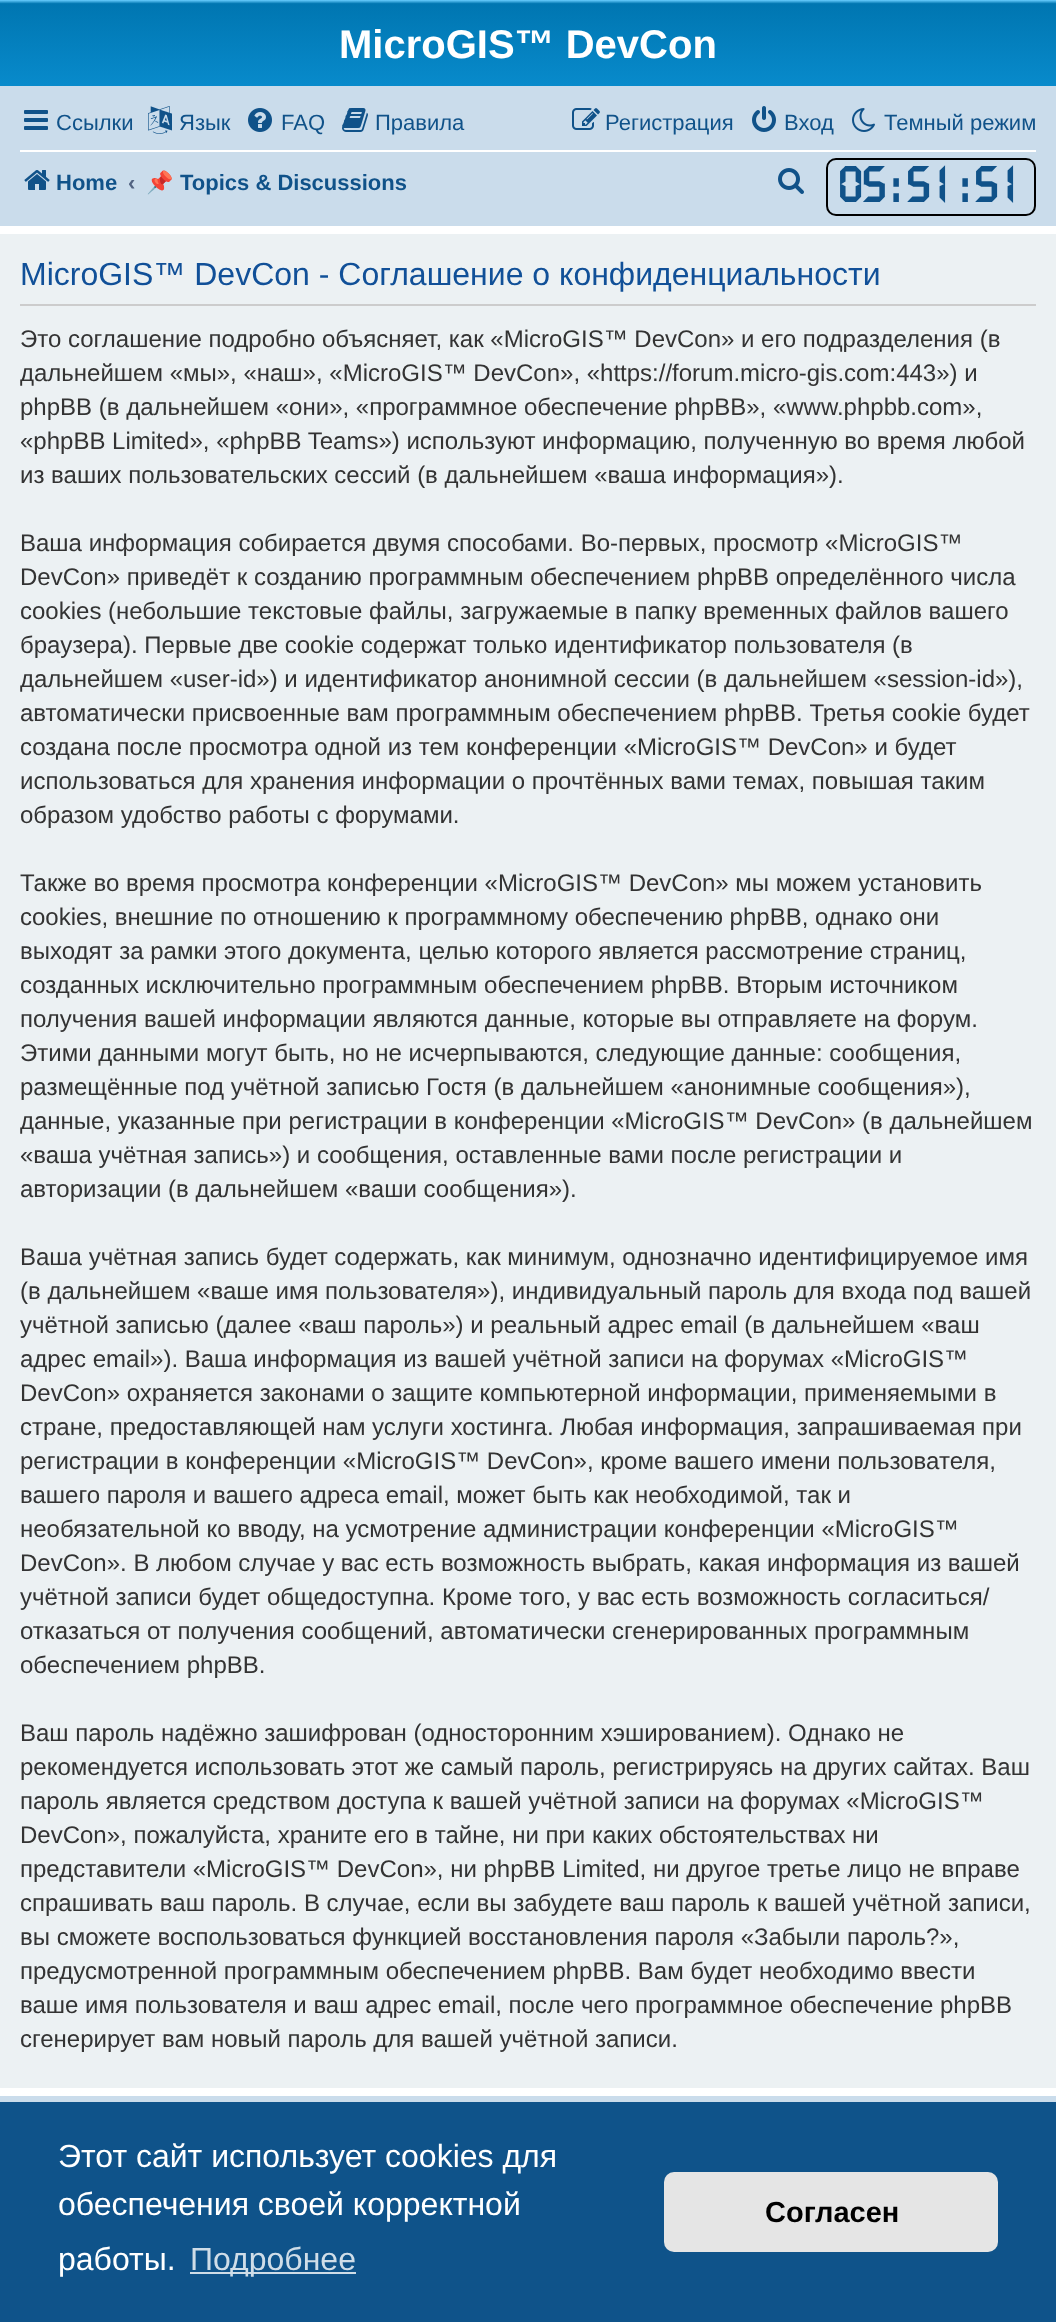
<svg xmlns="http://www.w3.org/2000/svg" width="1056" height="2322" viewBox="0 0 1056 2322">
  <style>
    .t1 { font: bold 40px Liberation Sans; fill: #fff; }
    .t2 { font: 22px Liberation Sans; fill: #105289; }
    .t3 { font: bold 22px Liberation Sans; fill: #105289; }
    .t4 { font: bold 22px Liberation Sans; fill: #536482; }
    .t5 { font: bold 22px Noto Color Emoji; fill: #105289; }
    .t6 { font: bold 48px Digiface; fill: #105289; }
    .t7 { font: 32px Liberation Sans; fill: #115098; }
    .t8 { font: 24px Liberation Sans; fill: #333; }
    .t9 { font: 32px Liberation Sans; fill: #fff; }
    .t10 { font: 32px Liberation Sans; fill: #cfdde8; }
    .t11 { font: bold 29px Liberation Sans; fill: #000; }
  </style>
  <defs>
    <linearGradient id="g1" gradientUnits="userSpaceOnUse" x1="528" y1="0" x2="528" y2="184"><stop offset="0" stop-color="#6aceff"/><stop offset="0.02" stop-color="#0076b1"/><stop offset="1" stop-color="#12a3eb"/></linearGradient>
  </defs>
  <rect width="100%" height="100%" fill="#fff"/>
  <rect x="0" y="0" width="1056" height="86" fill="url(#g1)"/>
  <text x="339" y="58" class="t1">MicroGIS™ DevCon</text>
  <rect x="0" y="86" width="1056" height="140" fill="#cadceb"/>
  <image x="24" y="110" width="24" height="20" href="images/1.png"/>
  <text x="56" y="130" class="t2">Ссылки</text>
  <image x="148" y="106" width="24" height="28" href="images/2.png"/>
  <text x="179" y="130" class="t2">Язык</text>
  <image x="248" y="108" width="24" height="24" href="images/3.png"/>
  <text x="281" y="130" class="t2">FAQ</text>
  <image x="342" y="108" width="26" height="24" href="images/4.png"/>
  <text x="375" y="130" class="t2">Правила</text>
  <image x="572" y="108" width="28" height="22" href="images/5.png"/>
  <text x="605" y="130" class="t2">Регистрация</text>
  <image x="752" y="106" width="24" height="26" href="images/6.png"/>
  <text x="784" y="130" class="t2">Вход</text>
  <image x="852" y="108" width="23" height="24" href="images/7.png"/>
  <text x="884" y="130" class="t2">Темный режим</text>
  <rect x="20" y="150" width="1016" height="2" fill="#fff"/>
  <image x="24" y="170" width="26" height="20" href="images/8.png"/>
  <text x="56" y="190" class="t3">Home</text>
  <text x="128" y="190" class="t4">‹</text>
  <text x="146" y="190" class="t5">📌</text>
  <text x="180" y="190" class="t3">Topics &amp; Discussions</text>
  <image x="778" y="168" width="26" height="26" href="images/9.png"/>
  <rect x="827" y="159" width="208" height="56" rx="9" fill="none" stroke="#000" stroke-width="2"/>
  <text x="838" y="202" class="t6">05</text>
  <text x="892" y="202" class="t6">:</text>
  <text x="906" y="202" class="t6">51</text>
  <text x="961" y="202" class="t6">:</text>
  <text x="974" y="202" class="t6">51</text>
  <rect x="0" y="234" width="1056" height="1854" fill="#ecf1f3"/>
  <rect x="20" y="304" width="1016" height="2" fill="#ccc"/>
  <text x="20" y="285" class="t7">MicroGIS™ DevCon - Соглашение о конфиденциальности</text>
  <text x="20" y="347" class="t8">Это соглашение подробно объясняет, как «MicroGIS™ DevCon» и его подразделения (в</text>
  <text x="20" y="381" class="t8">дальнейшем «мы», «наш», «MicroGIS™ DevCon», «https://forum.micro-gis.com:443») и</text>
  <text x="20" y="415" class="t8">phpBB (в дальнейшем «они», «программное обеспечение phpBB», «www.phpbb.com»,</text>
  <text x="20" y="449" class="t8">«phpBB Limited», «phpBB Teams») используют информацию, полученную во время любой</text>
  <text x="20" y="483" class="t8">из ваших пользовательских сессий (в дальнейшем «ваша информация»).</text>
  <text x="20" y="551" class="t8">Ваша информация собирается двумя способами. Во-первых, просмотр «MicroGIS™</text>
  <text x="20" y="585" class="t8">DevCon» приведёт к созданию программным обеспечением phpBB определённого числа</text>
  <text x="20" y="619" class="t8">cookies (небольшие текстовые файлы, загружаемые в папку временных файлов вашего</text>
  <text x="20" y="653" class="t8">браузера). Первые две cookie содержат только идентификатор пользователя (в</text>
  <text x="20" y="687" class="t8">дальнейшем «user-id») и идентификатор анонимной сессии (в дальнейшем «session-id»),</text>
  <text x="20" y="721" class="t8">автоматически присвоенные вам программным обеспечением phpBB. Третья cookie будет</text>
  <text x="20" y="755" class="t8">создана после просмотра одной из тем конференции «MicroGIS™ DevCon» и будет</text>
  <text x="20" y="789" class="t8">использоваться для хранения информации о прочтённых вами темах, повышая таким</text>
  <text x="20" y="823" class="t8">образом удобство работы с форумами.</text>
  <text x="20" y="891" class="t8">Также во время просмотра конференции «MicroGIS™ DevCon» мы можем установить</text>
  <text x="20" y="925" class="t8">cookies, внешние по отношению к программному обеспечению phpBB, однако они</text>
  <text x="20" y="959" class="t8">выходят за рамки этого документа, целью которого является рассмотрение страниц,</text>
  <text x="20" y="993" class="t8">созданных исключительно программным обеспечением phpBB. Вторым источником</text>
  <text x="20" y="1027" class="t8">получения вашей информации являются данные, которые вы отправляете на форум.</text>
  <text x="20" y="1061" class="t8">Этими данными могут быть, но не исчерпываются, следующие данные: сообщения,</text>
  <text x="20" y="1095" class="t8">размещённые под учётной записью Гостя (в дальнейшем «анонимные сообщения»),</text>
  <text x="20" y="1129" class="t8">данные, указанные при регистрации в конференции «MicroGIS™ DevCon» (в дальнейшем</text>
  <text x="20" y="1163" class="t8">«ваша учётная запись») и сообщения, оставленные вами после регистрации и</text>
  <text x="20" y="1197" class="t8">авторизации (в дальнейшем «ваши сообщения»).</text>
  <text x="20" y="1265" class="t8">Ваша учётная запись будет содержать, как минимум, однозначно идентифицируемое имя</text>
  <text x="20" y="1299" class="t8">(в дальнейшем «ваше имя пользователя»), индивидуальный пароль для входа под вашей</text>
  <text x="20" y="1333" class="t8">учётной записью (далее «ваш пароль») и реальный адрес email (в дальнейшем «ваш</text>
  <text x="20" y="1367" class="t8">адрес email»). Ваша информация из вашей учётной записи на форумах «MicroGIS™</text>
  <text x="20" y="1401" class="t8">DevCon» охраняется законами о защите компьютерной информации, применяемыми в</text>
  <text x="20" y="1435" class="t8">стране, предоставляющей нам услуги хостинга. Любая информация, запрашиваемая при</text>
  <text x="20" y="1469" class="t8">регистрации в конференции «MicroGIS™ DevCon», кроме вашего имени пользователя,</text>
  <text x="20" y="1503" class="t8">вашего пароля и вашего адреса email, может быть как необходимой, так и</text>
  <text x="20" y="1537" class="t8">необязательной ко вводу, на усмотрение администрации конференции «MicroGIS™</text>
  <text x="20" y="1571" class="t8">DevCon». В любом случае у вас есть возможность выбрать, какая информация из вашей</text>
  <text x="20" y="1605" class="t8">учётной записи будет общедоступна. Кроме того, у вас есть возможность согласиться/</text>
  <text x="20" y="1639" class="t8">отказаться от получения сообщений, автоматически сгенерированных программным</text>
  <text x="20" y="1673" class="t8">обеспечением phpBB.</text>
  <text x="20" y="1741" class="t8">Ваш пароль надёжно зашифрован (односторонним хэшированием). Однако не</text>
  <text x="20" y="1775" class="t8">рекомендуется использовать этот же самый пароль, регистрируясь на других сайтах. Ваш</text>
  <text x="20" y="1809" class="t8">пароль является средством доступа к вашей учётной записи на форумах «MicroGIS™</text>
  <text x="20" y="1843" class="t8">DevCon», пожалуйста, храните его в тайне, ни при каких обстоятельствах ни</text>
  <text x="20" y="1877" class="t8">представители «MicroGIS™ DevCon», ни phpBB Limited, ни другое третье лицо не вправе</text>
  <text x="20" y="1911" class="t8">спрашивать ваш пароль. В случае, если вы забудете ваш пароль к вашей учётной записи,</text>
  <text x="20" y="1945" class="t8">вы сможете воспользоваться функцией восстановления пароля «Забыли пароль?»,</text>
  <text x="20" y="1979" class="t8">предусмотренной программным обеспечением phpBB. Вам будет необходимо ввести</text>
  <text x="20" y="2013" class="t8">ваше имя пользователя и ваш адрес email, после чего программное обеспечение phpBB</text>
  <text x="20" y="2047" class="t8">сгенерирует вам новый пароль для вашей учётной записи.</text>
  <rect x="0" y="2096" width="1056" height="6" fill="#cadceb"/>
  <rect x="0" y="2102" width="1056" height="220" fill="#0f538a"/>
  <text x="58" y="2167" class="t9">Этот сайт использует cookies для</text>
  <text x="58" y="2215" class="t9">обеспечения своей корректной</text>
  <text x="58" y="2270" class="t9">работы.</text>
  <rect x="190" y="2272" width="166" height="2" fill="#cfdde8"/>
  <text x="190" y="2270" class="t10">Подробнее</text>
  <rect x="664" y="2172" width="334" height="80" rx="10" fill="#e5e5e5"/>
  <text x="765" y="2222" class="t11">Согласен</text>
</svg>
